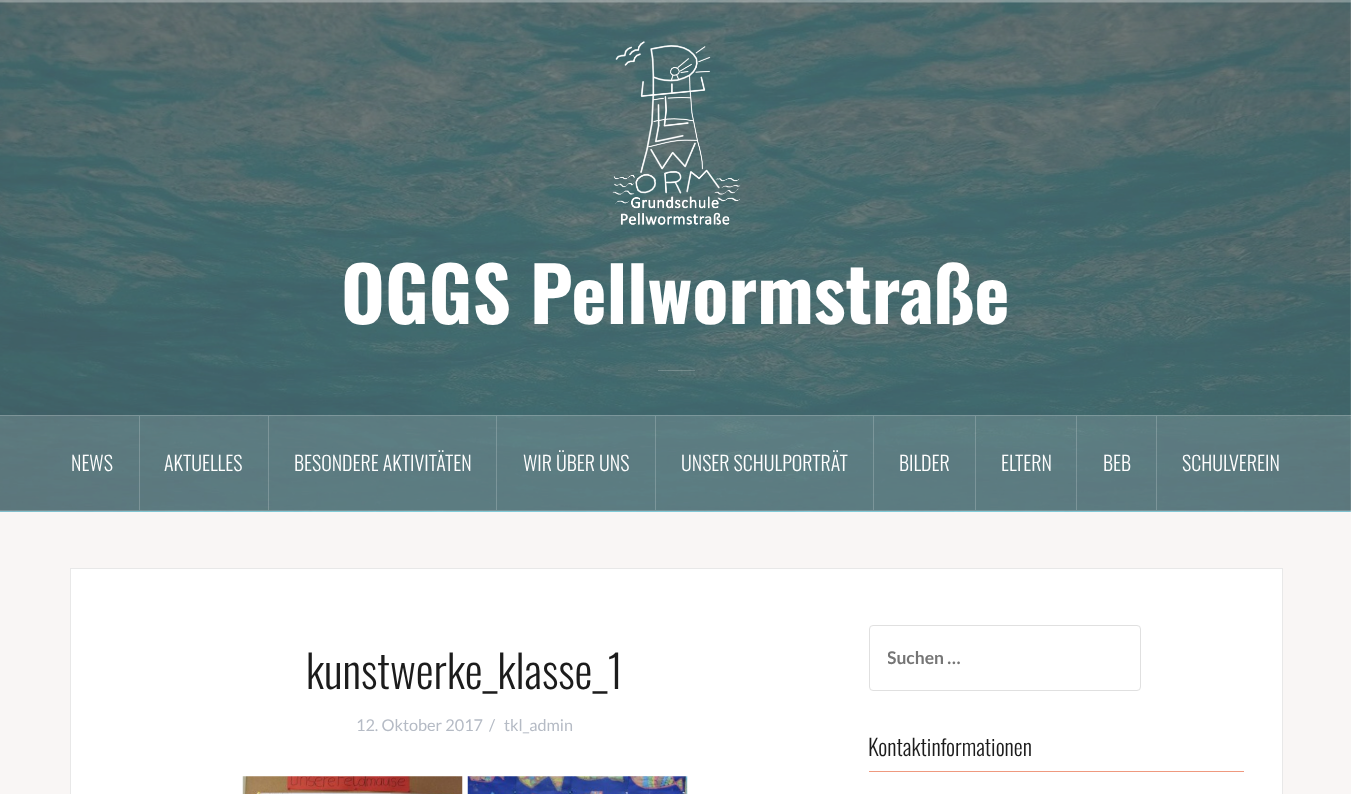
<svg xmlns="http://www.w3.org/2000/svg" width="1351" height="794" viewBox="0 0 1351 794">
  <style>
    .t1 { font: bold 75px Oswald; fill: #fff; }
    .t2 { font: 300 20px Oswald; fill: #fff; }
    .t3 { font: 300 45px Oswald; fill: #1c1c1c; }
    .t4 { font: 16.25px Lato; fill: #b5bbc5; }
    .t5 { font: bold 17.5px Lato; fill: #757575; }
    .t6 { font: 300 22.5px Oswald; fill: #1c1c1c; }
  </style>
  <defs>
    <clipPath id="clip1"><rect x="888" y="646" width="230" height="22"/></clipPath>
  </defs>
  <rect width="100%" height="100%" fill="#f9f6f5"/>
  <image x="0" y="0" width="1351" height="512" href="images/1.png"/>
  <rect x="0" y="0" width="1351" height="3" fill="#ffffff26"/>
  <rect x="0" y="0" width="1351" height="1" fill="#ffffff33"/>
  <rect x="0" y="1" width="1351" height="1" fill="#ffffff33"/>
  <image x="612" y="41" width="129" height="184" href="images/2.png"/>
  <text x="341" y="324" class="t1">OGGS Pellwormstraße</text>
  <rect x="658" y="370" width="37" height="1" fill="#ffffff33"/>
  <rect x="0" y="415" width="1351" height="96" fill="#ffffff26"/>
  <rect x="0" y="415" width="1351" height="1" fill="#ffffff33"/>
  <rect x="0" y="510" width="1351" height="1" fill="#ffffff33"/>
  <rect x="139" y="416" width="1" height="94" fill="#ffffff33"/>
  <text x="71" y="471" class="t2">NEWS</text>
  <rect x="268" y="416" width="1" height="94" fill="#ffffff33"/>
  <text x="164" y="471" class="t2">AKTUELLES</text>
  <rect x="496" y="416" width="1" height="94" fill="#ffffff33"/>
  <text x="294" y="471" class="t2">BESONDERE AKTIVITÄTEN</text>
  <rect x="655" y="416" width="1" height="94" fill="#ffffff33"/>
  <text x="523" y="471" class="t2">WIR ÜBER UNS</text>
  <rect x="873" y="416" width="1" height="94" fill="#ffffff33"/>
  <text x="681" y="471" class="t2">UNSER SCHULPORTRÄT</text>
  <rect x="975" y="416" width="1" height="94" fill="#ffffff33"/>
  <text x="899" y="471" class="t2">BILDER</text>
  <rect x="1076" y="416" width="1" height="94" fill="#ffffff33"/>
  <text x="1001" y="471" class="t2">ELTERN</text>
  <rect x="1156" y="416" width="1" height="94" fill="#ffffff33"/>
  <text x="1103" y="471" class="t2">BEB</text>
  <text x="1182" y="471" class="t2">SCHULVEREIN</text>
  <rect x="70.5" y="568.5" width="1212" height="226" fill="#fff" stroke="#e8e8e8"/>
  <text x="306" y="689" class="t3">kunstwerke_klasse_1</text>
  <text x="356" y="731" class="t4">12. Oktober 2017</text>
  <text x="489" y="731" class="t4">/</text>
  <text x="504" y="731" class="t4">tkl_admin</text>
  <image x="242" y="776" width="221" height="18" href="images/3.png"/>
  <image x="467" y="776" width="221" height="18" href="images/4.png"/>
  <rect x="869.5" y="625.5" width="271" height="65" rx="3.5" fill="none" stroke="#e0e0e0"/>
  <g clip-path="url(#clip1)">
    <text x="887" y="664" class="t5">Suchen …</text>
  </g>
  <rect x="869" y="771" width="375" height="1" fill="#ef997f"/>
  <text x="868" y="756" class="t6">Kontaktinformationen</text>
</svg>
